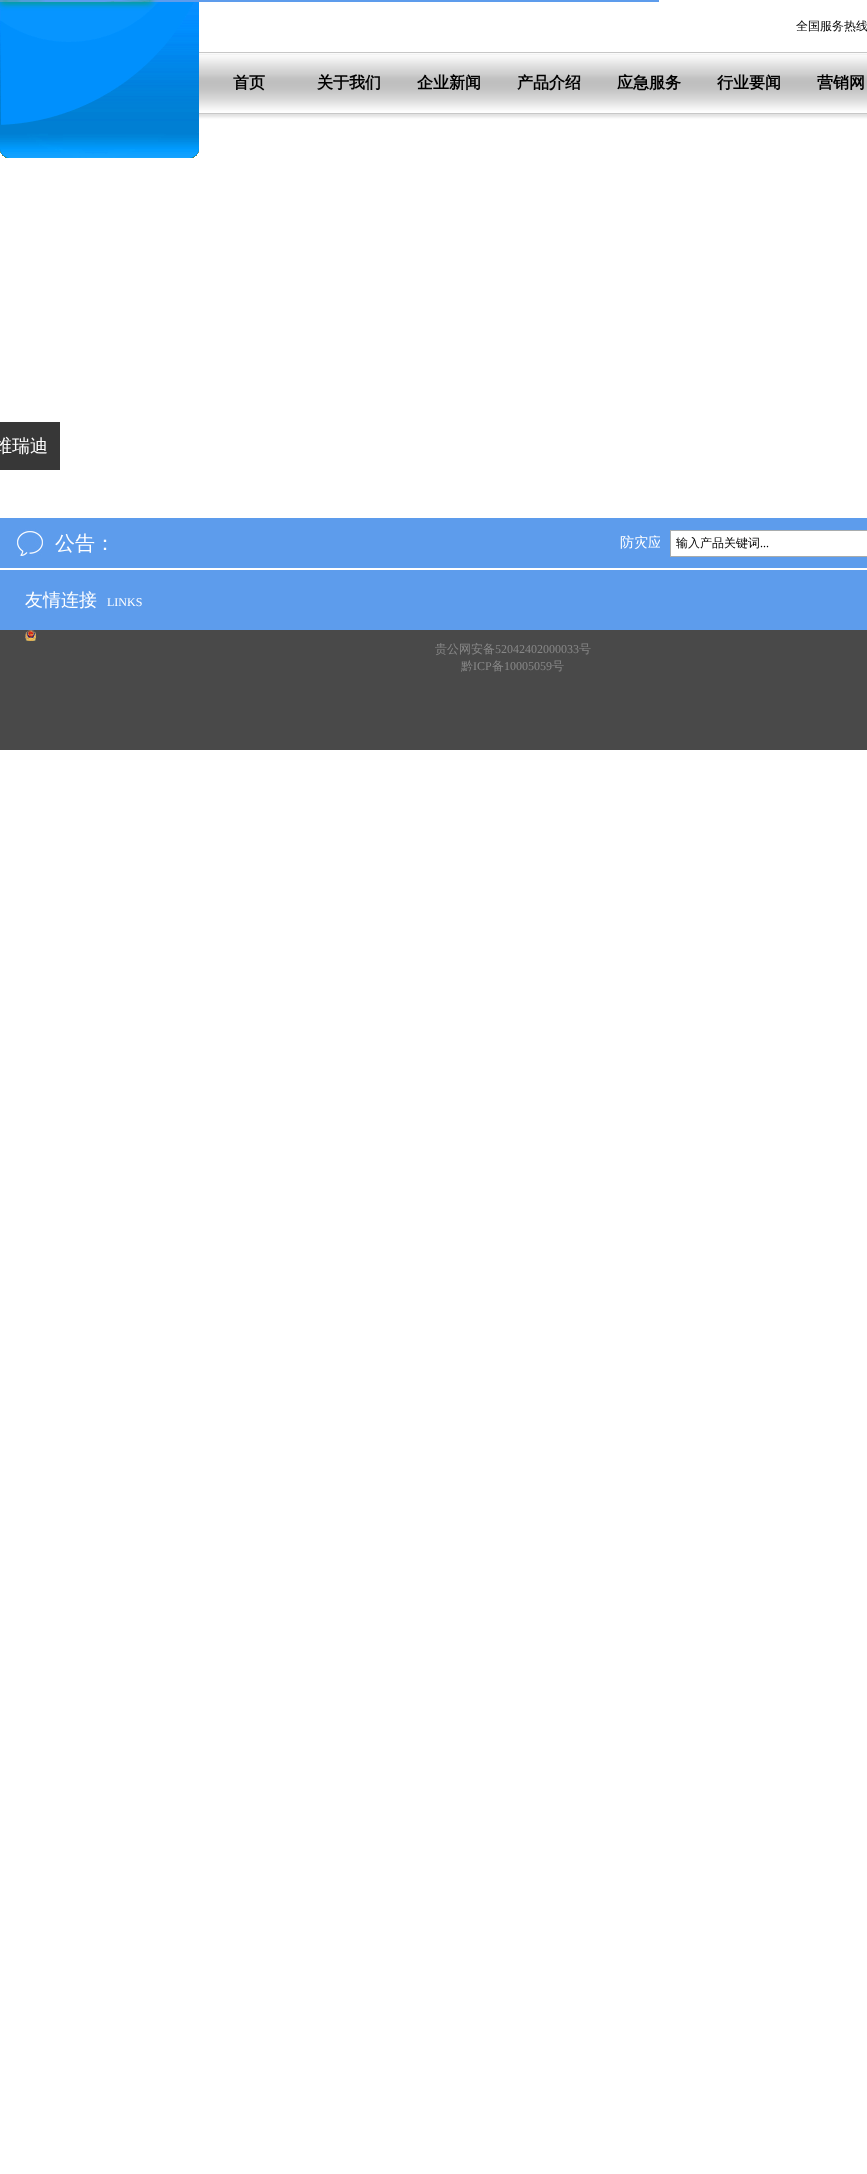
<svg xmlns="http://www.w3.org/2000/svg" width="867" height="2174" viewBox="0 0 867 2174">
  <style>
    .t1 { font: 500 12px WenQuanYi Zen Hei; fill: #000; }
    .t2 { font: bold 16px WenQuanYi Zen Hei; fill: #000; }
    .t3 { font: 500 18px WenQuanYi Zen Hei; fill: #fff; }
    .t4 { font: 500 20px WenQuanYi Zen Hei; fill: #fff; }
    .t5 { font: 500 14px WenQuanYi Zen Hei; fill: #fff; }
    .t6 { font: 12px Liberation Serif; fill: #000; }
    .t7 { font: 12px Liberation Serif; fill: #fff; }
    .t8 { font: 500 12px WenQuanYi Zen Hei; fill: #888; }
    .t9 { font: 12px Liberation Serif; fill: #888; }
  </style>
  <defs>
    <clipPath id="clip1"><path d="M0 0H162V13H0ZM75 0C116.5 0 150 .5 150 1C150 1.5 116.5 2 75 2C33.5 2 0 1.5 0 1C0 .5 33.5 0 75 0Z" clip-rule="evenodd"/></clipPath>
    <clipPath id="clip2"><rect x="160" y="518" width="500" height="50"/></clipPath>
  </defs>
  <rect width="100%" height="100%" fill="#fff"/>
  <rect x="0" y="0" width="659" height="2" fill="#5d9cec"/>
  <rect x="0" y="55" width="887" height="62" rx="15" fill="#0000001f" filter="blur(1.5px)"/>
  <image x="199" y="55" width="668" height="58" href="images/3.png"/>
  <rect x="0.5" y="52.5" width="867" height="61" fill="none" stroke="#c7c7c7"/>
  <image x="0" y="2" width="199" height="156" href="images/1.png"/>
  <g clip-path="url(#clip1)">
    <rect x="0" y="-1" width="152" height="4" rx="2" fill="#04a73e" filter="blur(3px)"/>
  </g>
  <image x="0" y="148" width="199" height="10" href="images/2.png"/>
  <text x="796" y="30" class="t1">全国服务热线</text>
  <text x="233" y="88" class="t2">首页</text>
  <text x="317" y="88" class="t2">关于我们</text>
  <text x="417" y="88" class="t2">企业新闻</text>
  <text x="517" y="88" class="t2">产品介绍</text>
  <text x="617" y="88" class="t2">应急服务</text>
  <text x="717" y="88" class="t2">行业要闻</text>
  <text x="817" y="88" class="t2">营销网</text>
  <rect x="0" y="422" width="60" height="48" fill="#373737"/>
  <text x="-6" y="452" class="t3">维瑞迪</text>
  <rect x="0" y="518" width="867" height="50" fill="#5d9cec"/>
  <image x="17" y="529" width="26" height="27" href="images/4.png"/>
  <text x="55" y="550" class="t4">公告：</text>
  <g clip-path="url(#clip2)">
    <text x="620" y="547" word-spacing="-1" class="t5">防灾应</text>
  </g>
  <rect x="670.5" y="530.5" width="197" height="26" fill="#fff" stroke="#a8acad"/>
  <text x="676" y="547" class="t1">输入产品关键词</text>
  <text x="760" y="547" class="t6">...</text>
  <rect x="0" y="630" width="867" height="120" fill="#494949"/>
  <rect x="0" y="570" width="867" height="60" fill="#5d9cec"/>
  <text x="25" y="606" class="t3">友情连接</text>
  <text x="107" y="606" class="t7">LINKS</text>
  <image x="25" y="630" width="11" height="11" href="images/5.png"/>
  <text x="435" y="653" class="t8">贵公网安备</text>
  <text x="495" y="653" class="t9">52042402000033</text>
  <text x="579" y="653" class="t8">号</text>
  <text x="461" y="670" class="t8">黔</text>
  <text x="473" y="670" class="t9">ICP</text>
  <text x="492" y="670" class="t8">备</text>
  <text x="504" y="670" class="t9">10005059</text>
  <text x="552" y="670" class="t8">号</text>
</svg>
